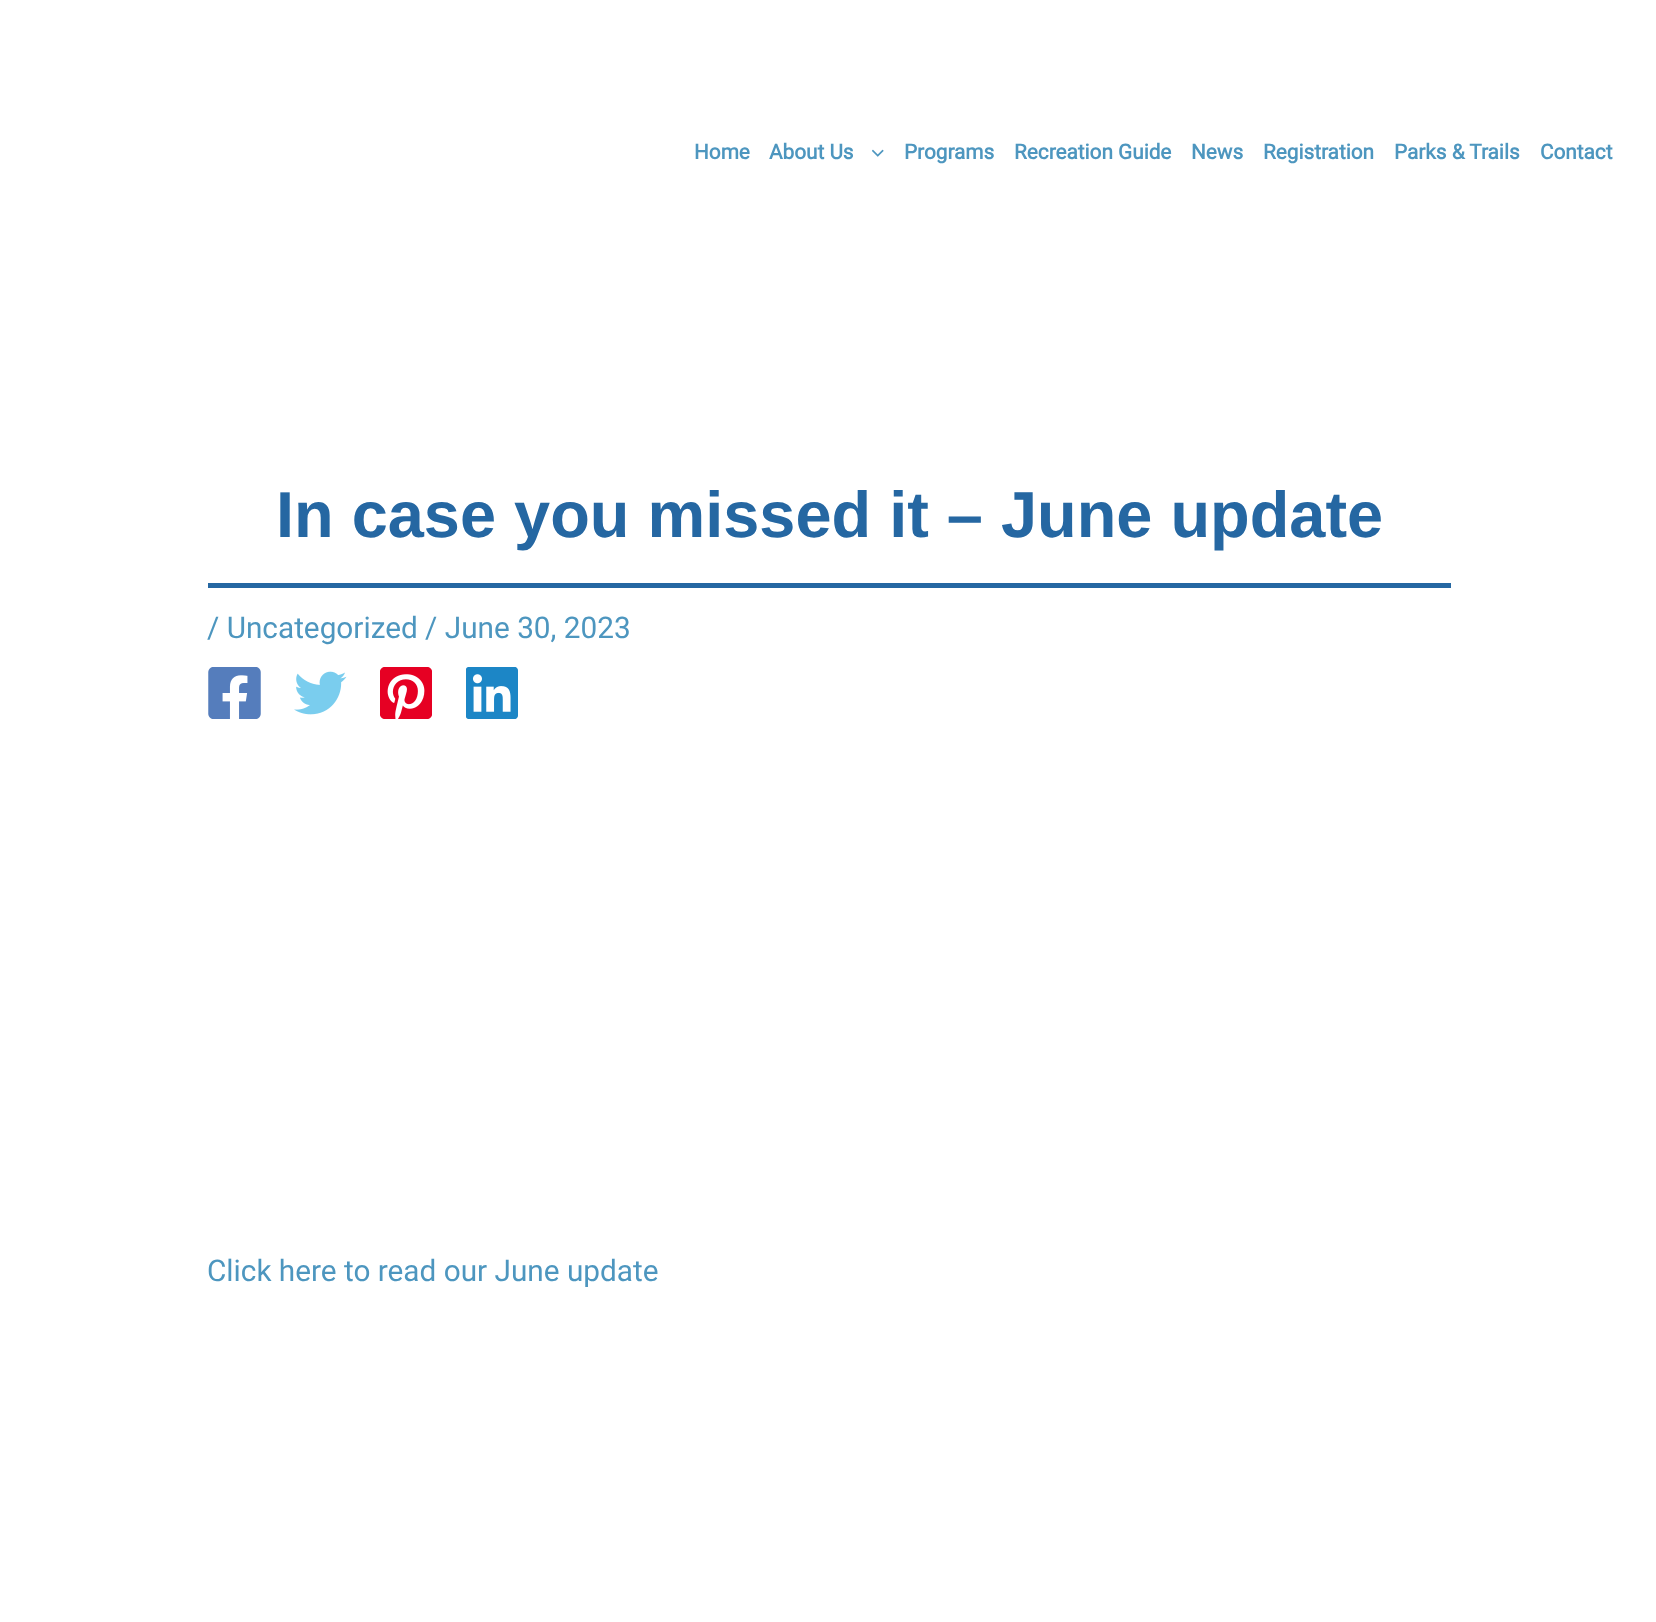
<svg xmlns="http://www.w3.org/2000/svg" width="1656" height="1622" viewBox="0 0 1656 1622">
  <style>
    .t1 { font: bold 20.75px Roboto; fill: #4d96bf; }
    .t2 { font: bold 64.9px Liberation Sans; fill: #2567a2; }
    .t3 { font: 29.75px Roboto; fill: #4d96bf; }
  </style>
  <rect width="100%" height="100%" fill="#fff"/>
  <text x="694" y="159" class="t1">Home</text>
  <text x="769" y="159" class="t1">About Us</text>
  <image x="872" y="149" width="12" height="8" href="images/1.png"/>
  <text x="904" y="159" class="t1">Programs</text>
  <text x="1014" y="159" class="t1">Recreation Guide</text>
  <text x="1191" y="159" class="t1">News</text>
  <text x="1263" y="159" class="t1">Registration</text>
  <text x="1394" y="159" class="t1">Parks &amp; Trails</text>
  <text x="1540" y="159" class="t1">Contact</text>
  <rect x="208" y="583" width="1243" height="5" fill="#2567a2"/>
  <text x="276" y="537" class="t2">In case you missed it – June update</text>
  <text x="207" y="638" class="t3">/ Uncategorized / June 30, 2023</text>
  <image x="208" y="667" width="53" height="52" href="images/2.png"/>
  <image x="294" y="671" width="53" height="44" href="images/3.png"/>
  <image x="380" y="667" width="52" height="52" href="images/4.png"/>
  <image x="466" y="667" width="52" height="52" href="images/5.png"/>
  <text x="207" y="1281" class="t3">Click here to read our June update</text>
</svg>
